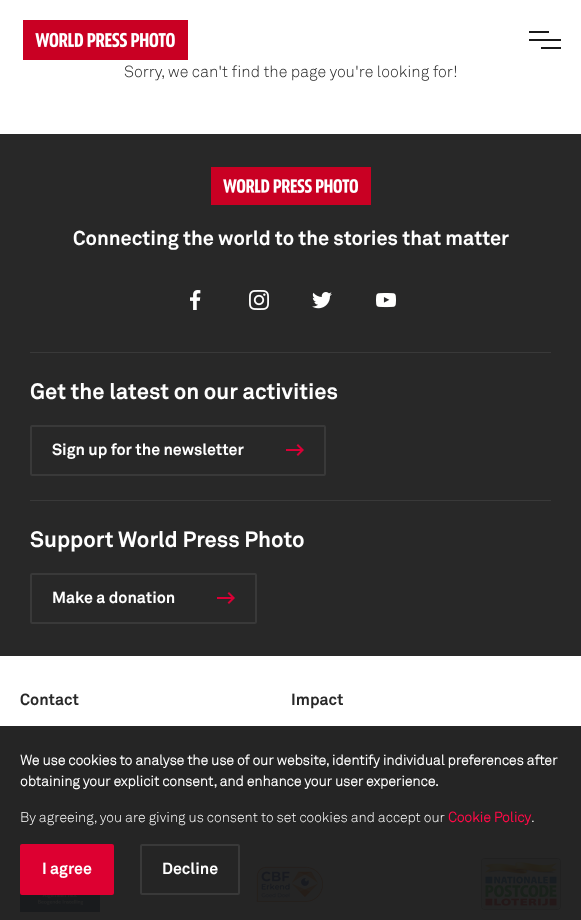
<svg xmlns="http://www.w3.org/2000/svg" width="581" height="920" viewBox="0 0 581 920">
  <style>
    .t1 { font: 300 16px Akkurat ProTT; fill: #282828; }
    .t2 { font: bold 14px 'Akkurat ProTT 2'; fill: #fff; }
    .t3 { font: 300 14px Akkurat ProTT; fill: #fff; }
    .t4 { font: bold 14px 'Akkurat ProTT 2'; fill: #ff0a47; }
    .t5 { font: bold 16px Akkurat ProTT; fill: #fff; }
    .t6 { font: bold 20px Akkurat ProTT; fill: #fff; }
    .t7 { font: bold 22px Akkurat ProTT; fill: #fff; }
    .t8 { font: bold 16px Akkurat ProTT; fill: #282828; }
  </style>
  <rect width="100%" height="100%" fill="#fff"/>
  <rect x="0" y="726" width="581" height="194" fill="#252525"/>
  <image x="23" y="20" width="165" height="40" href="images/1.png"/>
  <rect x="529" y="31" width="20" height="2" fill="#191919"/>
  <rect x="529" y="39" width="32" height="2" fill="#191919"/>
  <rect x="541" y="47" width="20" height="2" fill="#191919"/>
  <text x="124" y="77" class="t1">Sorry, we can't find the page you're looking for!</text>
  <text x="20" y="765" class="t2">We use cookies to analyse the use of our website, identify individual preferences after</text>
  <text x="20" y="786" class="t2">obtaining your explicit consent, and enhance your user experience.</text>
  <text x="20" y="822" class="t3">By agreeing, you are giving us consent to set cookies and accept our</text>
  <text x="448" y="822" class="t4">Cookie Policy</text>
  <text x="531" y="822" class="t3">.</text>
  <image x="20" y="893" width="80" height="19" href="images/8.png"/>
  <rect x="21" y="845" width="92" height="49" rx="1" fill="#dd0031" stroke="#dd0031" stroke-width="2"/>
  <text x="42" y="874" class="t5">I agree</text>
  <rect x="141" y="845" width="98" height="49" rx="1" fill="none" stroke="#393939" stroke-width="2"/>
  <text x="162" y="874" class="t5">Decline</text>
  <rect x="0" y="134" width="581" height="522" fill="#282828"/>
  <rect x="30" y="352" width="521" height="1" fill="#393939"/>
  <image x="211" y="167" width="160" height="38" href="images/2.png"/>
  <text x="73" y="245" class="t6">Connecting the world to the stories that matter</text>
  <image x="190" y="290" width="11" height="20" href="images/3.png"/>
  <image x="249" y="290" width="20" height="20" href="images/4.png"/>
  <image x="312" y="292" width="20" height="17" href="images/5.png"/>
  <image x="376" y="293" width="20" height="15" href="images/6.png"/>
  <rect x="30" y="500" width="521" height="1" fill="#393939"/>
  <text x="30" y="399" class="t7">Get the latest on our activities</text>
  <rect x="31" y="426" width="294" height="49" rx="1" fill="none" stroke="#393939" stroke-width="2"/>
  <text x="52" y="455" class="t5">Sign up for the newsletter</text>
  <image x="286" y="444" width="18" height="12" href="images/7.png"/>
  <text x="30" y="547" class="t7">Support World Press Photo</text>
  <rect x="31" y="574" width="225" height="49" rx="1" fill="none" stroke="#393939" stroke-width="2"/>
  <text x="52" y="603" class="t5">Make a donation</text>
  <image x="217" y="592" width="18" height="12" href="images/7.png"/>
  <text x="20" y="705" class="t8">Contact</text>
  <text x="291" y="705" class="t8">Impact</text>
  <image x="256" y="866" width="67" height="36" href="images/9.png"/>
  <image x="481" y="858" width="80" height="52" href="images/10.png"/>
</svg>
